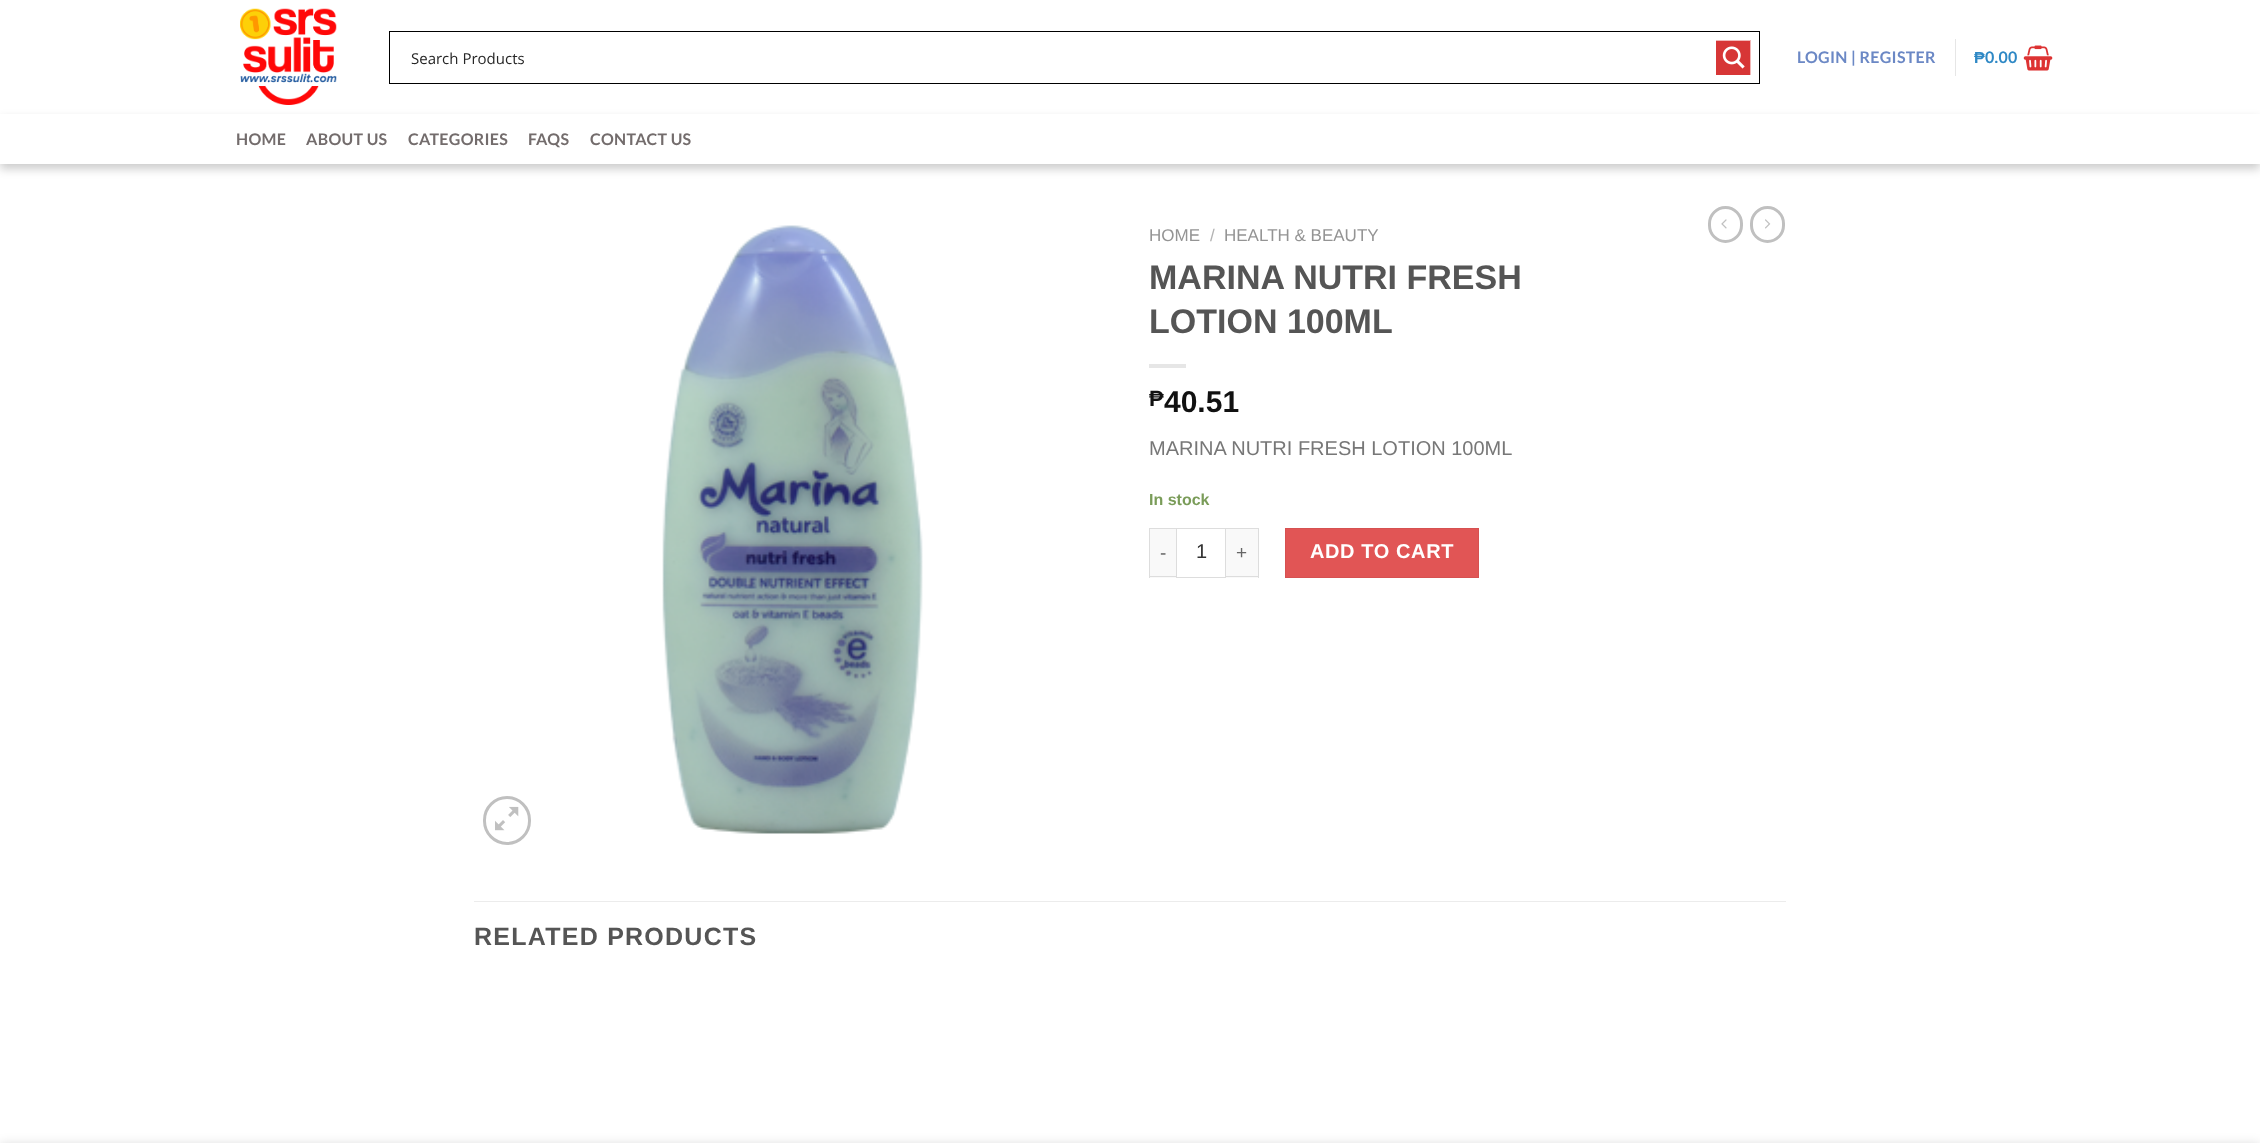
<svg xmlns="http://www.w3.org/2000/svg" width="2260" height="1143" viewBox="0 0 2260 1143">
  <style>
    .t1 { font: 15px Open Sans; fill: #262626; }
    .t2 { font: bold 16px Lato; letter-spacing: 0.3px; fill: #6b88c5; }
    .t3 { font: bold 16px Liberation Sans; letter-spacing: 0.3px; fill: #2e88c5; }
    .t4 { font: bold 16px Lato; letter-spacing: 0.3px; fill: #2e88c5; }
    .t5 { font: bold 16px Lato; letter-spacing: 0.3px; fill: #736c6c; }
    .t6 { font: 17px Liberation Sans; fill: #949494; }
    .t7 { font: 17px Liberation Sans; fill: #b2b2b2; }
    .t8 { font: bold 34px Liberation Sans; fill: #555; }
    .t9 { font: bold 22px Liberation Sans; fill: #111; }
    .t10 { font: bold 30px Liberation Sans; fill: #111; }
    .t11 { font: 20px Liberation Sans; fill: #777; }
    .t12 { font: bold 16px Liberation Sans; fill: #7a9c59; }
    .t13 { font: 19px Liberation Sans; letter-spacing: 1px; fill: #666; }
    .t14 { font: 20px Liberation Sans; fill: #333; }
    .t15 { font: bold 20px Liberation Sans; letter-spacing: 0.6px; fill: #fff; }
    .t16 { font: bold 25px Liberation Sans; letter-spacing: 1.25px; fill: #555; }
  </style>
  <defs>
    <clipPath id="clip1"><rect x="1716" y="40" width="35" height="35"/></clipPath>
  </defs>
  <rect width="100%" height="100%" fill="#fff"/>
  <rect x="0" y="119" width="2260" height="50" fill="#00000033" filter="blur(5px)"/>
  <image x="240" y="8" width="97" height="97" href="images/1.png"/>
  <rect x="389.5" y="31.5" width="1370" height="52" fill="none" stroke="#000"/>
  <text x="411" y="64" class="t1">Search Products</text>
  <rect x="1716" y="41" width="34" height="34" fill="#d73636"/>
  <g clip-path="url(#clip1)">
    <path d="M1592-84H1875V199H1592ZM1715 41H1750V76H1715Z" fill="#f1b7b7" fill-rule="evenodd"/>
  </g>
  <image x="1722" y="46" width="23" height="23" href="images/2.png"/>
  <text x="1797" y="63" class="t2">LOGIN | REGISTER</text>
  <rect x="1955" y="39" width="1" height="37" fill="#e6e6e6"/>
  <text x="1974" y="63" class="t3">₱</text>
  <text x="1985" y="63" class="t4">0.00</text>
  <image x="2023" y="45" width="30" height="26" href="images/3.png"/>
  <rect x="0" y="114" width="2260" height="50" fill="#fff"/>
  <text x="236" y="145" class="t5">HOME</text>
  <text x="306" y="145" class="t5">ABOUT US</text>
  <text x="408" y="145" class="t5">CATEGORIES</text>
  <text x="528" y="145" class="t5">FAQS</text>
  <text x="590" y="145" class="t5">CONTACT US</text>
  <rect x="484.5" y="797.5" width="45" height="46" rx="22.5" fill="none" stroke="#c0c0c0" stroke-width="3"/>
  <image x="495" y="806" width="24" height="25" href="images/4.png"/>
  <image x="662" y="225" width="261" height="609" href="images/5.png"/>
  <text x="1149" y="241" class="t6">HOME</text>
  <text x="1210" y="241" class="t7">/</text>
  <text x="1224" y="241" class="t6">HEALTH &amp; BEAUTY</text>
  <text x="1149" y="289" class="t8">MARINA NUTRI FRESH</text>
  <text x="1149" y="333" class="t8">LOTION 100ML</text>
  <rect x="1149" y="364" width="37" height="4" fill="#e6e6e6"/>
  <text x="1149" y="406" class="t9">₱</text>
  <text x="1164" y="412" class="t10">40.51</text>
  <text x="1149" y="455" class="t11">MARINA NUTRI FRESH LOTION 100ML</text>
  <text x="1149" y="505" class="t12">In stock</text>
  <rect x="1150" y="529" width="26" height="49" fill="#f9f9f9"/>
  <rect x="1149" y="528" width="27" height="1" fill="#ddd"/>
  <rect x="1149" y="576" width="27" height="1" fill="#ddd"/>
  <rect x="1149" y="528" width="1" height="50" fill="#ddd"/>
  <text x="1160" y="559" class="t13">-</text>
  <rect x="1176.5" y="528.5" width="49" height="49" fill="none" stroke="#ddd"/>
  <text x="1196" y="558" class="t14">1</text>
  <rect x="1226" y="529" width="32" height="49" fill="#f9f9f9"/>
  <rect x="1226" y="528" width="33" height="1" fill="#ddd"/>
  <rect x="1258" y="528" width="1" height="50" fill="#ddd"/>
  <rect x="1226" y="576" width="33" height="1" fill="#ddd"/>
  <text x="1236" y="559" class="t13">+</text>
  <rect x="1285.5" y="528.5" width="193" height="49" fill="#e15555" stroke="#d65151"/>
  <text x="1310" y="558" class="t15">ADD TO CART</text>
  <rect x="1709.5" y="207.5" width="32" height="34" rx="16" fill="none" stroke="#c0c0c0" stroke-width="3"/>
  <image x="1721" y="219" width="6" height="10" href="images/6.png"/>
  <rect x="1751.5" y="207.5" width="32" height="34" rx="16" fill="none" stroke="#c0c0c0" stroke-width="3"/>
  <image x="1765" y="219" width="6" height="10" href="images/7.png"/>
  <rect x="474" y="901" width="1312" height="1" fill="#ececec"/>
  <text x="474" y="945" class="t16">RELATED PRODUCTS</text>
  <rect x="0" y="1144" width="2260" height="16" fill="#00000024" filter="blur(5.5px)"/>
</svg>
